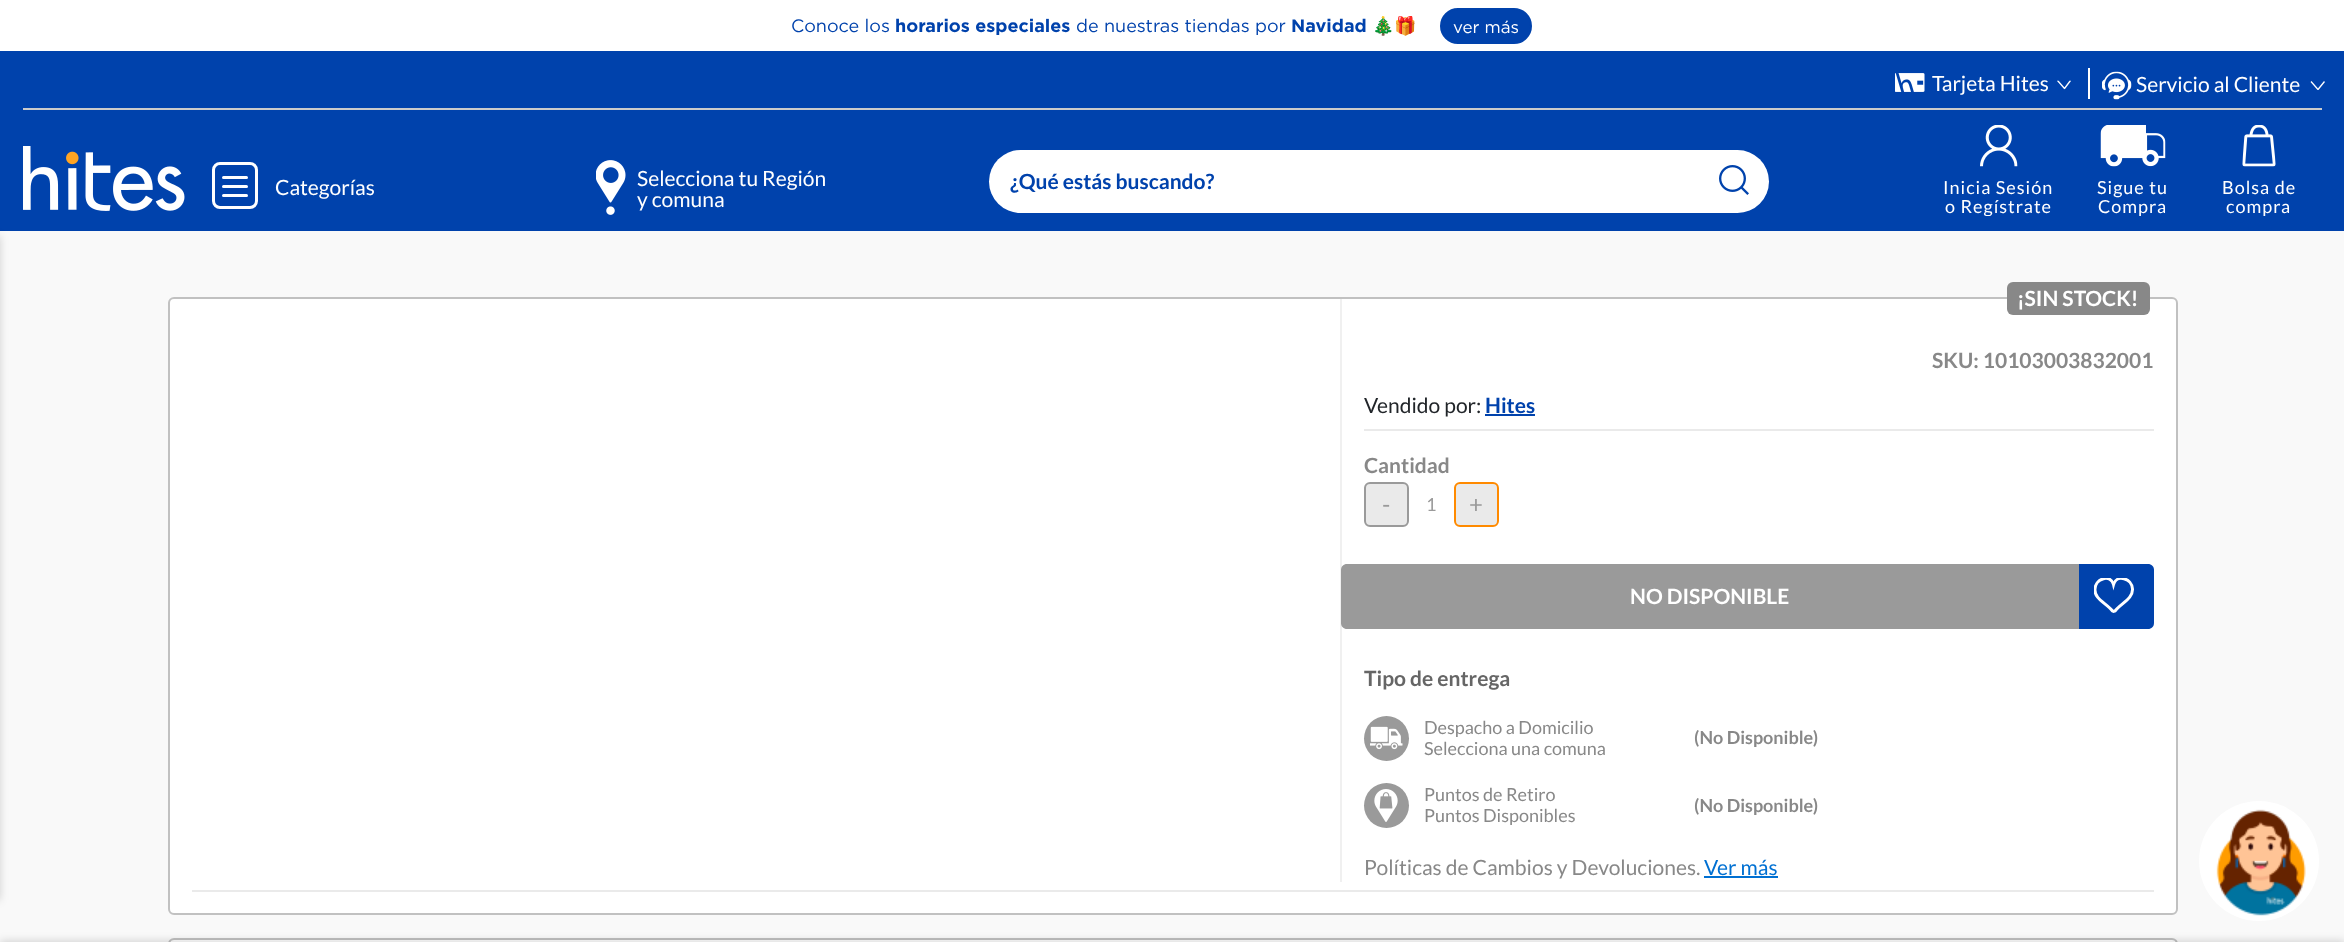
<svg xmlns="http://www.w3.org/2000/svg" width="2344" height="942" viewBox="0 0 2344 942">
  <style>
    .t1 { font: 18px Gotham; fill: #0042ac; }
    .t2 { font: bold 18px Gotham; fill: #0042ac; }
    .t3 { font: 18px Noto Color Emoji; fill: #0042ac; }
    .t4 { font: 17px Gotham; fill: #fff; }
    .t5 { font: 21px Lato; fill: #fff; }
    .t6 { font: bold 21px Lato; fill: #0042ac; }
    .t7 { font: 18px Lato; letter-spacing: 1px; fill: #fff; }
    .t8 { font: bold 21px Lato; fill: #fff; }
    .t9 { font: bold 21px Lato; fill: #888; }
    .t10 { font: 21px Lato; fill: #212529; }
    .t11 { font: 24px Lato; fill: #9a9a9a; }
    .t12 { font: 18px Lato; fill: #9a9a9a; }
    .t13 { font: bold 21px Lato; fill: #666; }
    .t14 { font: 18px Lato; fill: #888; }
    .t15 { font: bold 18px Lato; fill: #888; }
    .t16 { font: 21px Lato; fill: #888; }
    .t17 { font: 21px Lato; fill: #0070d2; }
  </style>
  <defs>
    <clipPath id="clip1"><path d="M2072 80.5V89.5H2057V80.5Z"/></clipPath>
    <clipPath id="clip2"><path d="M2325 81V90H2310V81Z"/></clipPath>
    <clipPath id="clip3"><rect x="1943" y="177" width="112" height="39"/></clipPath>
    <clipPath id="clip4"><rect x="2094" y="578" width="44" height="37"/></clipPath>
  </defs>
  <rect width="100%" height="100%" fill="#f9f9f9"/>
  <rect x="0" y="0" width="2344" height="51" fill="#fff"/>
  <text x="791" y="32" class="t1">Conoce los</text>
  <text x="895" y="32" class="t2">horarios especiales</text>
  <text x="1076" y="32" class="t1">de nuestras tiendas por</text>
  <text x="1291" y="32" class="t2">Navidad</text>
  <text x="1372" y="32" class="t3">🎄🎁</text>
  <rect x="1441" y="9" width="90" height="34" rx="17" fill="#0042ac" stroke="#0042ac" stroke-width="2"/>
  <text x="1453" y="33" class="t4">ver más</text>
  <rect x="0" y="51" width="2344" height="180" fill="#0042ac"/>
  <rect x="23" y="108" width="2299" height="2" fill="#cbcbcb"/>
  <rect x="2088" y="68" width="2" height="31" fill="#fff"/>
  <image x="1895" y="73" width="30" height="19" href="images/1.png"/>
  <text x="1932" y="91" class="t5">Tarjeta Hites</text>
  <g clip-path="url(#clip1)">
    <path d="M2070.5 80.5L2064.5 88.5L2057.5 80.5" fill="none" stroke="#fff" stroke-width="1.3" stroke-linejoin="round"/>
  </g>
  <image x="2102" y="71" width="30" height="29" href="images/2.png"/>
  <text x="2136" y="92" class="t5">Servicio al Cliente</text>
  <g clip-path="url(#clip2)">
    <g clip-path="url(#clip2)">
      <path d="M2324.5 81.5L2318 89.5L2311 81.5" fill="none" stroke="#fff" stroke-width="1.3" stroke-linejoin="round"/>
    </g>
  </g>
  <image x="23" y="146" width="162" height="65" href="images/3.png"/>
  <rect x="213.5" y="163.5" width="43" height="44" rx="6.5" fill="none" stroke="#fff" stroke-width="3"/>
  <rect x="222" y="185" width="26" height="3" rx="1.5" fill="#fff"/>
  <rect x="222" y="176" width="26" height="3" rx="1.5" fill="#fff"/>
  <rect x="222" y="194" width="26" height="3" rx="1.5" fill="#fff"/>
  <text x="275" y="195" class="t5">Categorías</text>
  <rect x="-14" y="236" width="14" height="664" fill="#00000029" filter="blur(4.5px)"/>
  <image x="596" y="160" width="30" height="55" href="images/4.png"/>
  <text x="637" y="186" class="t5">Selecciona tu Región</text>
  <text x="637" y="207" class="t5">y comuna</text>
  <rect x="989" y="150" width="780" height="63" rx="31.5" fill="#fff"/>
  <text x="1010" y="189" class="t6">¿Qué estás buscando?</text>
  <image x="1719" y="165" width="30" height="30" href="images/5.png"/>
  <image x="1980" y="125" width="38" height="42" href="images/6.png"/>
  <text x="1943" y="194" class="t7">Inicia Sesión</text>
  <g clip-path="url(#clip3)">
    <text x="1945" y="213" class="t7">o Regístrate</text>
  </g>
  <image x="2100" y="125" width="66" height="42" href="images/7.png"/>
  <text x="2097" y="194" class="t7">Sigue tu</text>
  <text x="2098" y="213" class="t7">Compra</text>
  <image x="2242" y="125" width="34" height="42" href="images/8.png"/>
  <text x="2222" y="194" class="t7">Bolsa de</text>
  <text x="2226" y="213" class="t7">compra</text>
  <rect x="169" y="298" width="2008" height="616" rx="5" fill="#fff" stroke="#c1c1c1" stroke-width="2"/>
  <rect x="1340" y="299" width="2" height="583" fill="#f0f0f0"/>
  <rect x="2007" y="282" width="143" height="33" rx="6" fill="#888"/>
  <text x="2017" y="306" class="t8">¡SIN STOCK!</text>
  <text x="1932" y="368" class="t9">SKU: 10103003832001</text>
  <text x="1364" y="413" class="t10">Vendido por:</text>
  <text x="1485" y="413" class="t6">Hites</text>
  <rect x="1485" y="414" width="50" height="2" fill="#0042ac"/>
  <rect x="1364" y="429" width="790" height="2" fill="#eaeaea"/>
  <text x="1364" y="473" class="t9">Cantidad</text>
  <rect x="1365" y="483" width="43" height="43" rx="5" fill="#eaeaea" stroke="#9a9a9a" stroke-width="2"/>
  <text x="1382" y="513" class="t11">-</text>
  <text x="1426" y="511" class="t12">1</text>
  <rect x="1455" y="483" width="43" height="43" rx="5" fill="#eaeaea" stroke="#ff8a00" stroke-width="2"/>
  <text x="1469" y="513" class="t11">+</text>
  <path d="M1347 564H2079V629H1347C1343.5 629 1341 626.5 1341 623V570C1341 566.5 1343.5 564 1347 564Z" fill="#9a9a9a"/>
  <text x="1630" y="604" class="t8">NO DISPONIBLE</text>
  <path d="M2079 564H2148C2151.5 564 2154 566.5 2154 570V623C2154 626.5 2151.5 629 2148 629H2079Z" fill="#0042ac"/>
  <g clip-path="url(#clip4)">
    <path d="M2112.5 611L2113.5 611.5L2115 611C2121 603 2133 599 2132.5 589C2132 578 2116.5 574 2113.5 584.5C2111 574 2095.5 578 2095 589C2094 599 2106.5 603 2112.5 611Z" fill="none" stroke="#fff" stroke-width="3"/>
  </g>
  <text x="1364" y="686" class="t13">Tipo de entrega</text>
  <circle cx="1386.5" cy="738.5" r="22.5" fill="#9a9a9a"/>
  <image x="1370" y="726" width="33" height="24" href="images/9.png"/>
  <text x="1424" y="734" class="t14">Despacho a Domicilio</text>
  <text x="1424" y="755" class="t14">Selecciona una comuna</text>
  <text x="1694" y="744" class="t15">(No Disponible)</text>
  <circle cx="1386.5" cy="805.5" r="22.5" fill="#9a9a9a"/>
  <image x="1374" y="789" width="24" height="33" href="images/10.png"/>
  <text x="1424" y="801" class="t14">Puntos de Retiro</text>
  <text x="1424" y="822" class="t14">Puntos Disponibles</text>
  <text x="1694" y="812" class="t15">(No Disponible)</text>
  <text x="1364" y="875" class="t16">Políticas de Cambios y Devoluciones.</text>
  <text x="1704" y="875" class="t17">Ver más</text>
  <rect x="1704" y="876" width="74" height="2" fill="#0070d2"/>
  <rect x="192" y="890" width="1962" height="2" fill="#eaeaea"/>
  <rect x="169" y="939" width="2008" height="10" rx="5" fill="#fff" stroke="#c1c1c1" stroke-width="2"/>
  <rect x="0" y="941" width="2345" height="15" fill="#00000029" filter="blur(4.5px)"/>
  <circle cx="2259" cy="861" r="60" fill="#fff"/>
  <image x="2216" y="809" width="90" height="107" href="images/11.png"/>
</svg>
